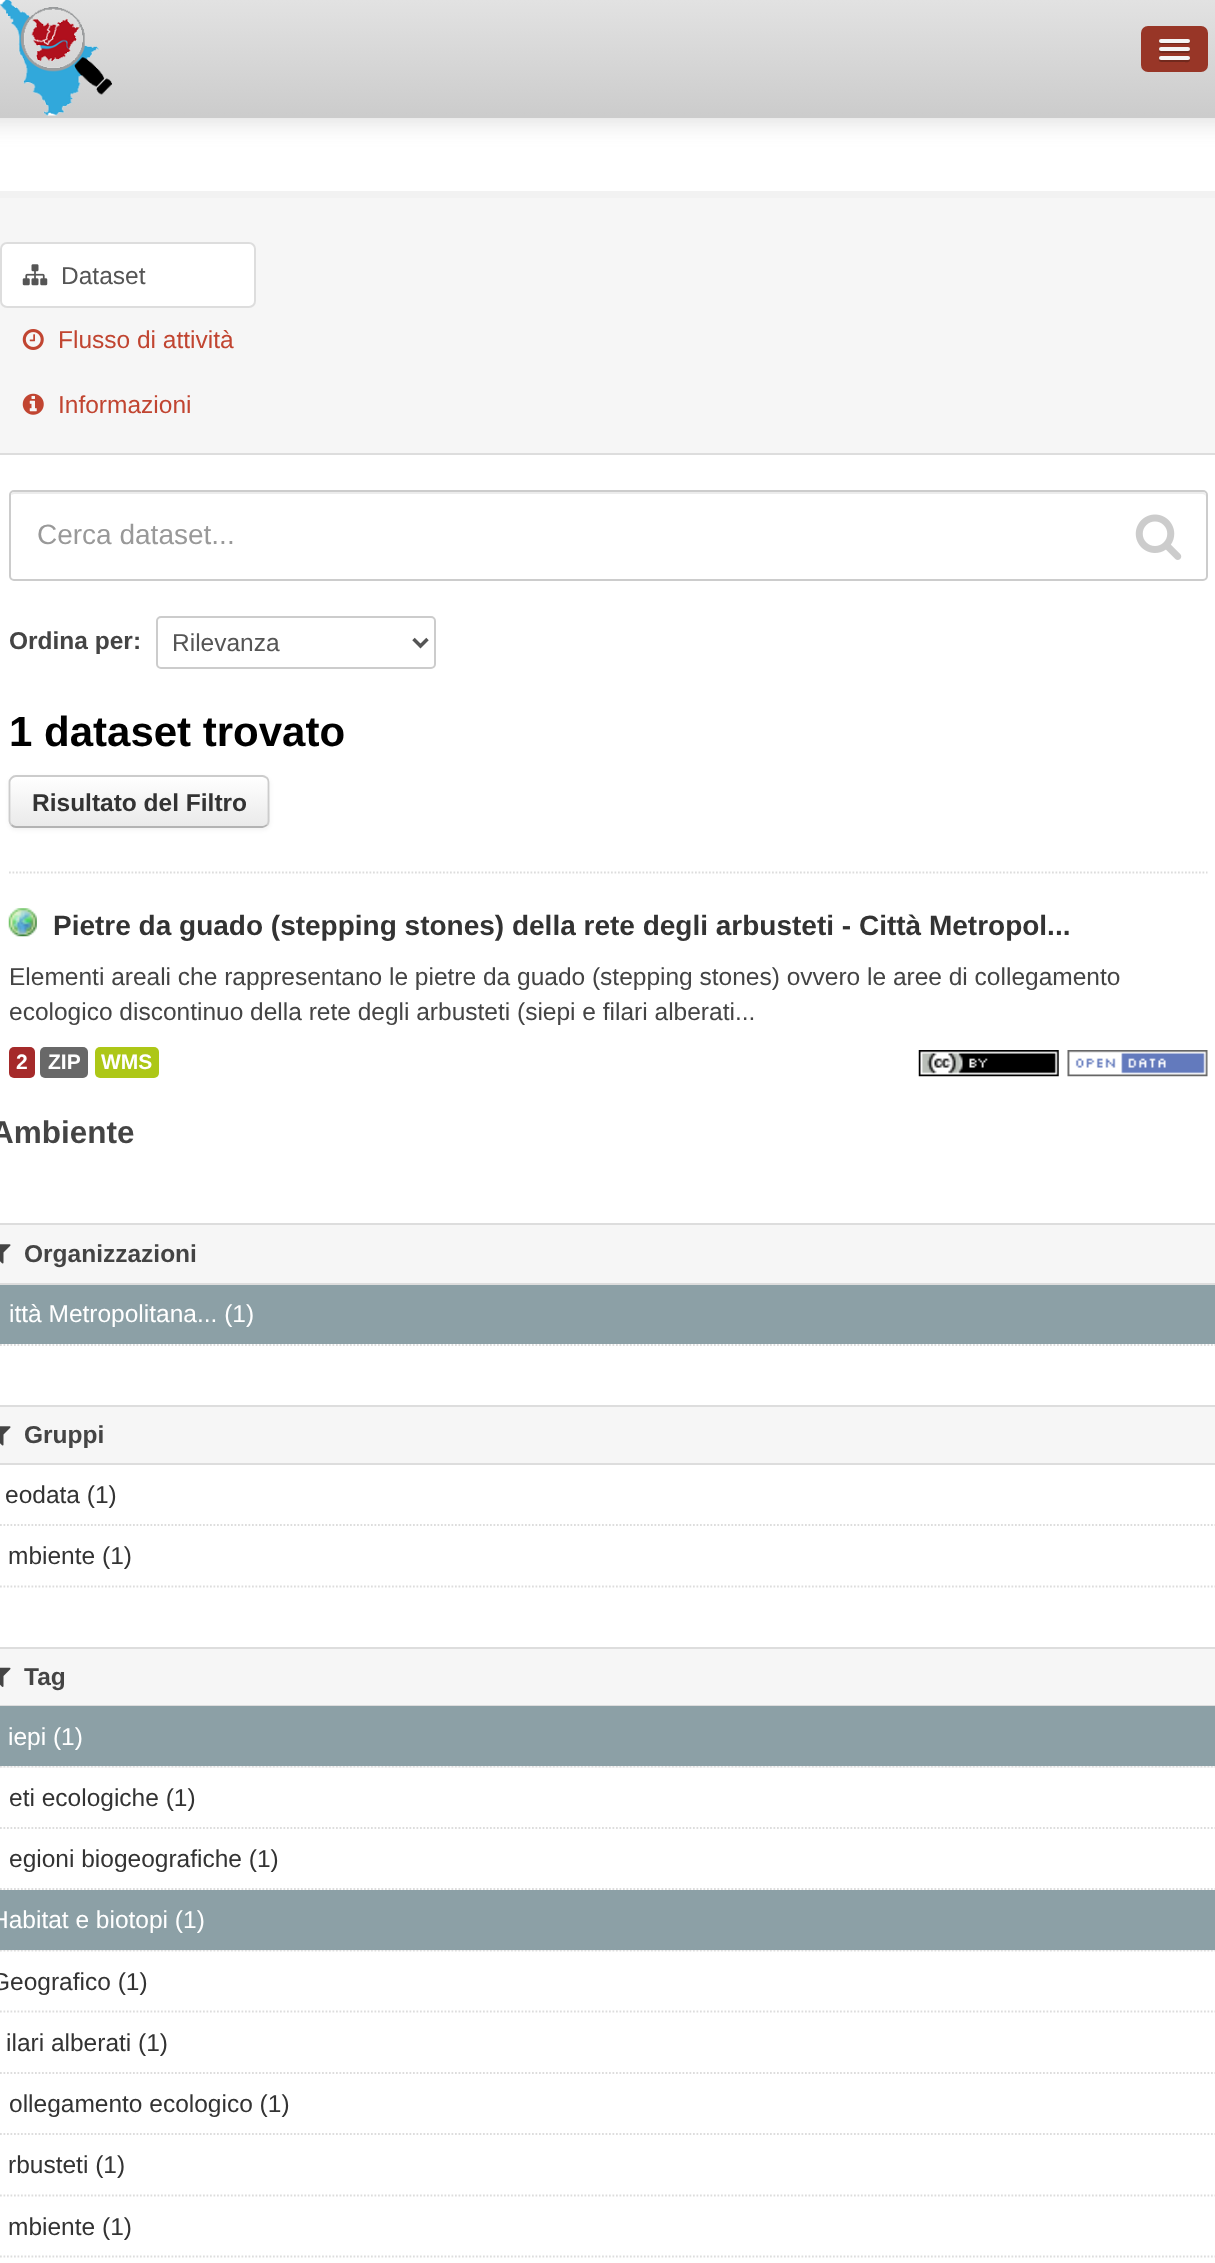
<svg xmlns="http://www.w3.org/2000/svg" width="1215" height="2263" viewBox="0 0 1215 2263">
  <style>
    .t1 { font: 24.5px Liberation Sans; fill: #555; }
    .t2 { font: 24.5px Liberation Sans; fill: #c14531; }
    .t3 { font: 28px Liberation Sans; fill: #999; }
    .t4 { font: bold 24.5px Liberation Sans; fill: #444; }
    .t5 { font: bold 42px Liberation Sans; fill: #000; }
    .t6 { font: bold 24.5px Liberation Sans; fill: #333; }
    .t7 { font: bold 28px Liberation Sans; fill: #333; }
    .t8 { font: 24.5px Liberation Sans; fill: #444; }
    .t9 { font: bold 21px Liberation Sans; fill: #fff; }
    .t10 { font: bold 31.5px Liberation Sans; fill: #444; }
    .t11 { font: 24.5px Liberation Sans; fill: #fff; }
    .t12 { font: 24.5px Liberation Sans; fill: #333; }
  </style>
  <defs>
    <linearGradient id="g1" gradientUnits="userSpaceOnUse" x1="608" y1="0" x2="608" y2="116"><stop offset="0" stop-color="#e2e2e2"/><stop offset="1" stop-color="#ccc"/></linearGradient>
    <clipPath id="clip1"><rect x="9" y="775" width="261" height="53" rx="7"/></clipPath>
    <linearGradient id="g2" gradientUnits="userSpaceOnUse" x1="139" y1="777" x2="139" y2="826"><stop offset="0" stop-color="#fff"/><stop offset="1" stop-color="#eaeaea"/></linearGradient>
  </defs>
  <rect width="100%" height="100%" fill="#fff"/>
  <rect x="-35" y="4" width="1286" height="117" fill="#ddd" filter="blur(13px)"/>
  <rect x="0" y="0" width="1215" height="116" fill="url(#g1)"/>
  <rect x="0" y="116" width="1215" height="2" fill="#ccc"/>
  <image x="0" y="0" width="112" height="116" href="images/1.png"/>
  <rect x="1141" y="26" width="67" height="46" rx="7" fill="#983627"/>
  <path d="M1159 41.5C1158 45 1164.5 44 1165.5 44H1183.5C1184.5 44 1191.5 45 1190 41L1188.5 42H1160Z" fill="#72291d"/>
  <rect x="1159" y="39" width="31" height="4" rx="2" fill="#f5f5f5"/>
  <path d="M1159 50.5C1158 54 1164.5 53 1165.5 53H1183.5C1184 53 1192 54 1189.5 50L1188.5 50.5H1160Z" fill="#72291d"/>
  <rect x="1159" y="47" width="31" height="4" rx="2" fill="#f5f5f5"/>
  <path d="M1159 59C1157.5 63 1164.5 62 1165.5 62H1183.5C1184.5 62 1189.5 63 1190 60.5L1189.5 59L1188.5 59.5C1186 60 1160 60 1159 59Z" fill="#72291d"/>
  <rect x="1159" y="56" width="31" height="4" rx="2" fill="#f5f5f5"/>
  <rect x="-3.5" y="194.5" width="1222" height="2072" fill="none" stroke="#f2f2f2" stroke-width="7"/>
  <rect x="0" y="198" width="1215" height="255" fill="#f6f6f6"/>
  <rect x="0" y="453" width="1215" height="2" fill="#ddd"/>
  <rect x="1" y="243" width="254" height="64" rx="6" fill="#fff" stroke="#ddd" stroke-width="2"/>
  <image x="22" y="264" width="26" height="22" href="images/2.png"/>
  <text x="61" y="284" class="t1">Dataset</text>
  <image x="22" y="329" width="22" height="21" href="images/3.png"/>
  <text x="58" y="348" class="t2">Flusso di attività</text>
  <image x="22" y="393" width="22" height="22" href="images/4.png"/>
  <text x="58" y="413" class="t2">Informazioni</text>
  <path d="M9 872.5H1207.5" fill="none" stroke="#ddd" stroke-width="1.8" stroke-dasharray="1.75 1.75"/>
  <path d="M14 494H1202C1204 494 1206 495 1206 497V496C1206 494 1204 492 1202 492H15C13 492 12 493 11 495Z" fill="#ececec"/>
  <rect x="10" y="491" width="1197" height="89" rx="4" fill="none" stroke="#ccc" stroke-width="2"/>
  <text x="37" y="544" class="t3">Cerca dataset...</text>
  <image x="1135" y="514" width="47" height="46" href="images/5.png"/>
  <text x="9" y="649" class="t4">Ordina per:</text>
  <rect x="157" y="617" width="278" height="51" rx="4" fill="none" stroke="#ccc" stroke-width="2"/>
  <path d="M413.5 639L420.5 646L427.5 639" fill="none" stroke="#555" stroke-width="3.5"/>
  <text x="172" y="651" class="t1">Rilevanza</text>
  <text x="9" y="746" class="t5">1 dataset trovato</text>
  <rect x="9" y="777" width="261" height="53" rx="7" fill="#0000000d" filter="blur(2px)"/>
  <rect x="9" y="775" width="261" height="53" rx="7" fill="#f7f7f7"/>
  <g clip-path="url(#clip1)">
    <rect x="9" y="777" width="261" height="49" fill="url(#g2)"/>
  </g>
  <path d="M267 825C265.5 826 264 827 262.5 827H16C14 827 12.5 826 11.5 825" fill="none" stroke="#b3b3b3" stroke-width="1.8"/>
  <path d="M11.5 825C10.5 824 9.5 822.5 9.5 821V782C9.5 780.5 10.5 779 11.5 778C12.5 777 14 776 16 776H262.5C264 776 265.5 777 267 778C268 779 268.5 780.5 268.5 782V821C268.5 822.5 268 824 267 825" fill="none" stroke="#ccc" stroke-width="1.8"/>
  <text x="32" y="811" class="t6">Risultato del Filtro</text>
  <image x="8" y="908" width="29" height="29" href="images/6.png"/>
  <text x="53" y="935" class="t7">Pietre da guado (stepping stones) della rete degli arbusteti - Città Metropol...</text>
  <text x="9" y="985" class="t8">Elementi areali che rappresentano le pietre da guado (stepping stones) ovvero le aree di collegamento</text>
  <text x="9" y="1020" class="t8">ecologico discontinuo della rete degli arbusteti (siepi e filari alberati...</text>
  <rect x="9" y="1047" width="26" height="31" rx="5" fill="#a52a2a"/>
  <text x="16" y="1069" class="t9">2</text>
  <rect x="40" y="1047" width="48" height="31" rx="5" fill="#686868"/>
  <text x="48" y="1069" class="t9">ZIP</text>
  <rect x="95" y="1047" width="64" height="31" rx="5" fill="#adc717"/>
  <text x="101" y="1069" class="t9">WMS</text>
  <image x="918" y="1050" width="141" height="27" href="images/7.png"/>
  <image x="1067" y="1050" width="141" height="27" href="images/8.png"/>
  <text x="-9" y="1143" class="t10">Ambiente</text>
  <rect x="0" y="1225" width="1215" height="58" fill="#f6f6f6"/>
  <rect x="0" y="1223" width="1215" height="2" fill="#ddd"/>
  <rect x="0" y="1283" width="1215" height="2" fill="#ddd"/>
  <image x="0" y="1244" width="11" height="20" href="images/9.png"/>
  <text x="24" y="1262" class="t4">Organizzazioni</text>
  <rect x="0" y="1285" width="1215" height="59" fill="#8ca0a6"/>
  <text x="9" y="1322" class="t11">ittà Metropolitana... (1)</text>
  <path d="M-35 1345H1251" fill="none" stroke="#ddd" stroke-width="1.8" stroke-dasharray="1.75 1.75"/>
  <rect x="0" y="1407" width="1215" height="56" fill="#f6f6f6"/>
  <rect x="0" y="1405" width="1215" height="2" fill="#ddd"/>
  <rect x="0" y="1463" width="1215" height="2" fill="#ddd"/>
  <image x="0" y="1426" width="11" height="20" href="images/9.png"/>
  <text x="24" y="1443" class="t4">Gruppi</text>
  <path d="M-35 1525H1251" fill="none" stroke="#ddd" stroke-width="1.8" stroke-dasharray="1.75 1.75"/>
  <text x="5" y="1503" class="t12">eodata (1)</text>
  <text x="8" y="1564" class="t12">mbiente (1)</text>
  <path d="M-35 1586.5H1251" fill="none" stroke="#ddd" stroke-width="1.8" stroke-dasharray="1.75 1.75"/>
  <rect x="0" y="1649" width="1215" height="56" fill="#f6f6f6"/>
  <rect x="0" y="1647" width="1215" height="2" fill="#ddd"/>
  <rect x="0" y="1705" width="1215" height="1" fill="#ddd"/>
  <image x="0" y="1667" width="11" height="20" href="images/10.png"/>
  <text x="24" y="1685" class="t4">Tag</text>
  <rect x="0" y="1766" width="1215" height="2" fill="#f6f6f6"/>
  <path d="M-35 1766.5H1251" fill="none" stroke="#ddd" stroke-width="1.8" stroke-dasharray="1.75 1.75"/>
  <rect x="0" y="1706" width="1215" height="60" fill="#8ca0a6"/>
  <text x="8" y="1745" class="t11">iepi (1)</text>
  <path d="M-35 1828H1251" fill="none" stroke="#ddd" stroke-width="1.8" stroke-dasharray="1.75 1.75"/>
  <text x="9" y="1806" class="t12">eti ecologiche (1)</text>
  <path d="M-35 1889H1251" fill="none" stroke="#ddd" stroke-width="1.8" stroke-dasharray="1.75 1.75"/>
  <text x="9" y="1867" class="t12">egioni biogeografiche (1)</text>
  <rect x="1" y="1950" width="1214" height="1" fill="#f6f6f6"/>
  <path d="M-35 1950.5H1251" fill="none" stroke="#ddd" stroke-width="1.8" stroke-dasharray="1.75 1.75"/>
  <rect x="0" y="1890" width="1215" height="60" fill="#8ca0a6"/>
  <text x="-9" y="1928" class="t11">Habitat e biotopi (1)</text>
  <path d="M-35 2011.5H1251" fill="none" stroke="#ddd" stroke-width="1.8" stroke-dasharray="1.75 1.75"/>
  <text x="-9" y="1990" class="t12">Geografico (1)</text>
  <path d="M-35 2073H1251" fill="none" stroke="#ddd" stroke-width="1.8" stroke-dasharray="1.75 1.75"/>
  <text x="6" y="2051" class="t12">ilari alberati (1)</text>
  <path d="M-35 2134H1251" fill="none" stroke="#ddd" stroke-width="1.8" stroke-dasharray="1.75 1.75"/>
  <text x="9" y="2112" class="t12">ollegamento ecologico (1)</text>
  <path d="M-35 2195.5H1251" fill="none" stroke="#ddd" stroke-width="1.8" stroke-dasharray="1.75 1.75"/>
  <text x="8" y="2173" class="t12">rbusteti (1)</text>
  <text x="8" y="2235" class="t12">mbiente (1)</text>
  <path d="M-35 2256.5H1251" fill="none" stroke="#ddd" stroke-width="1.8" stroke-dasharray="1.75 1.75"/>
</svg>
